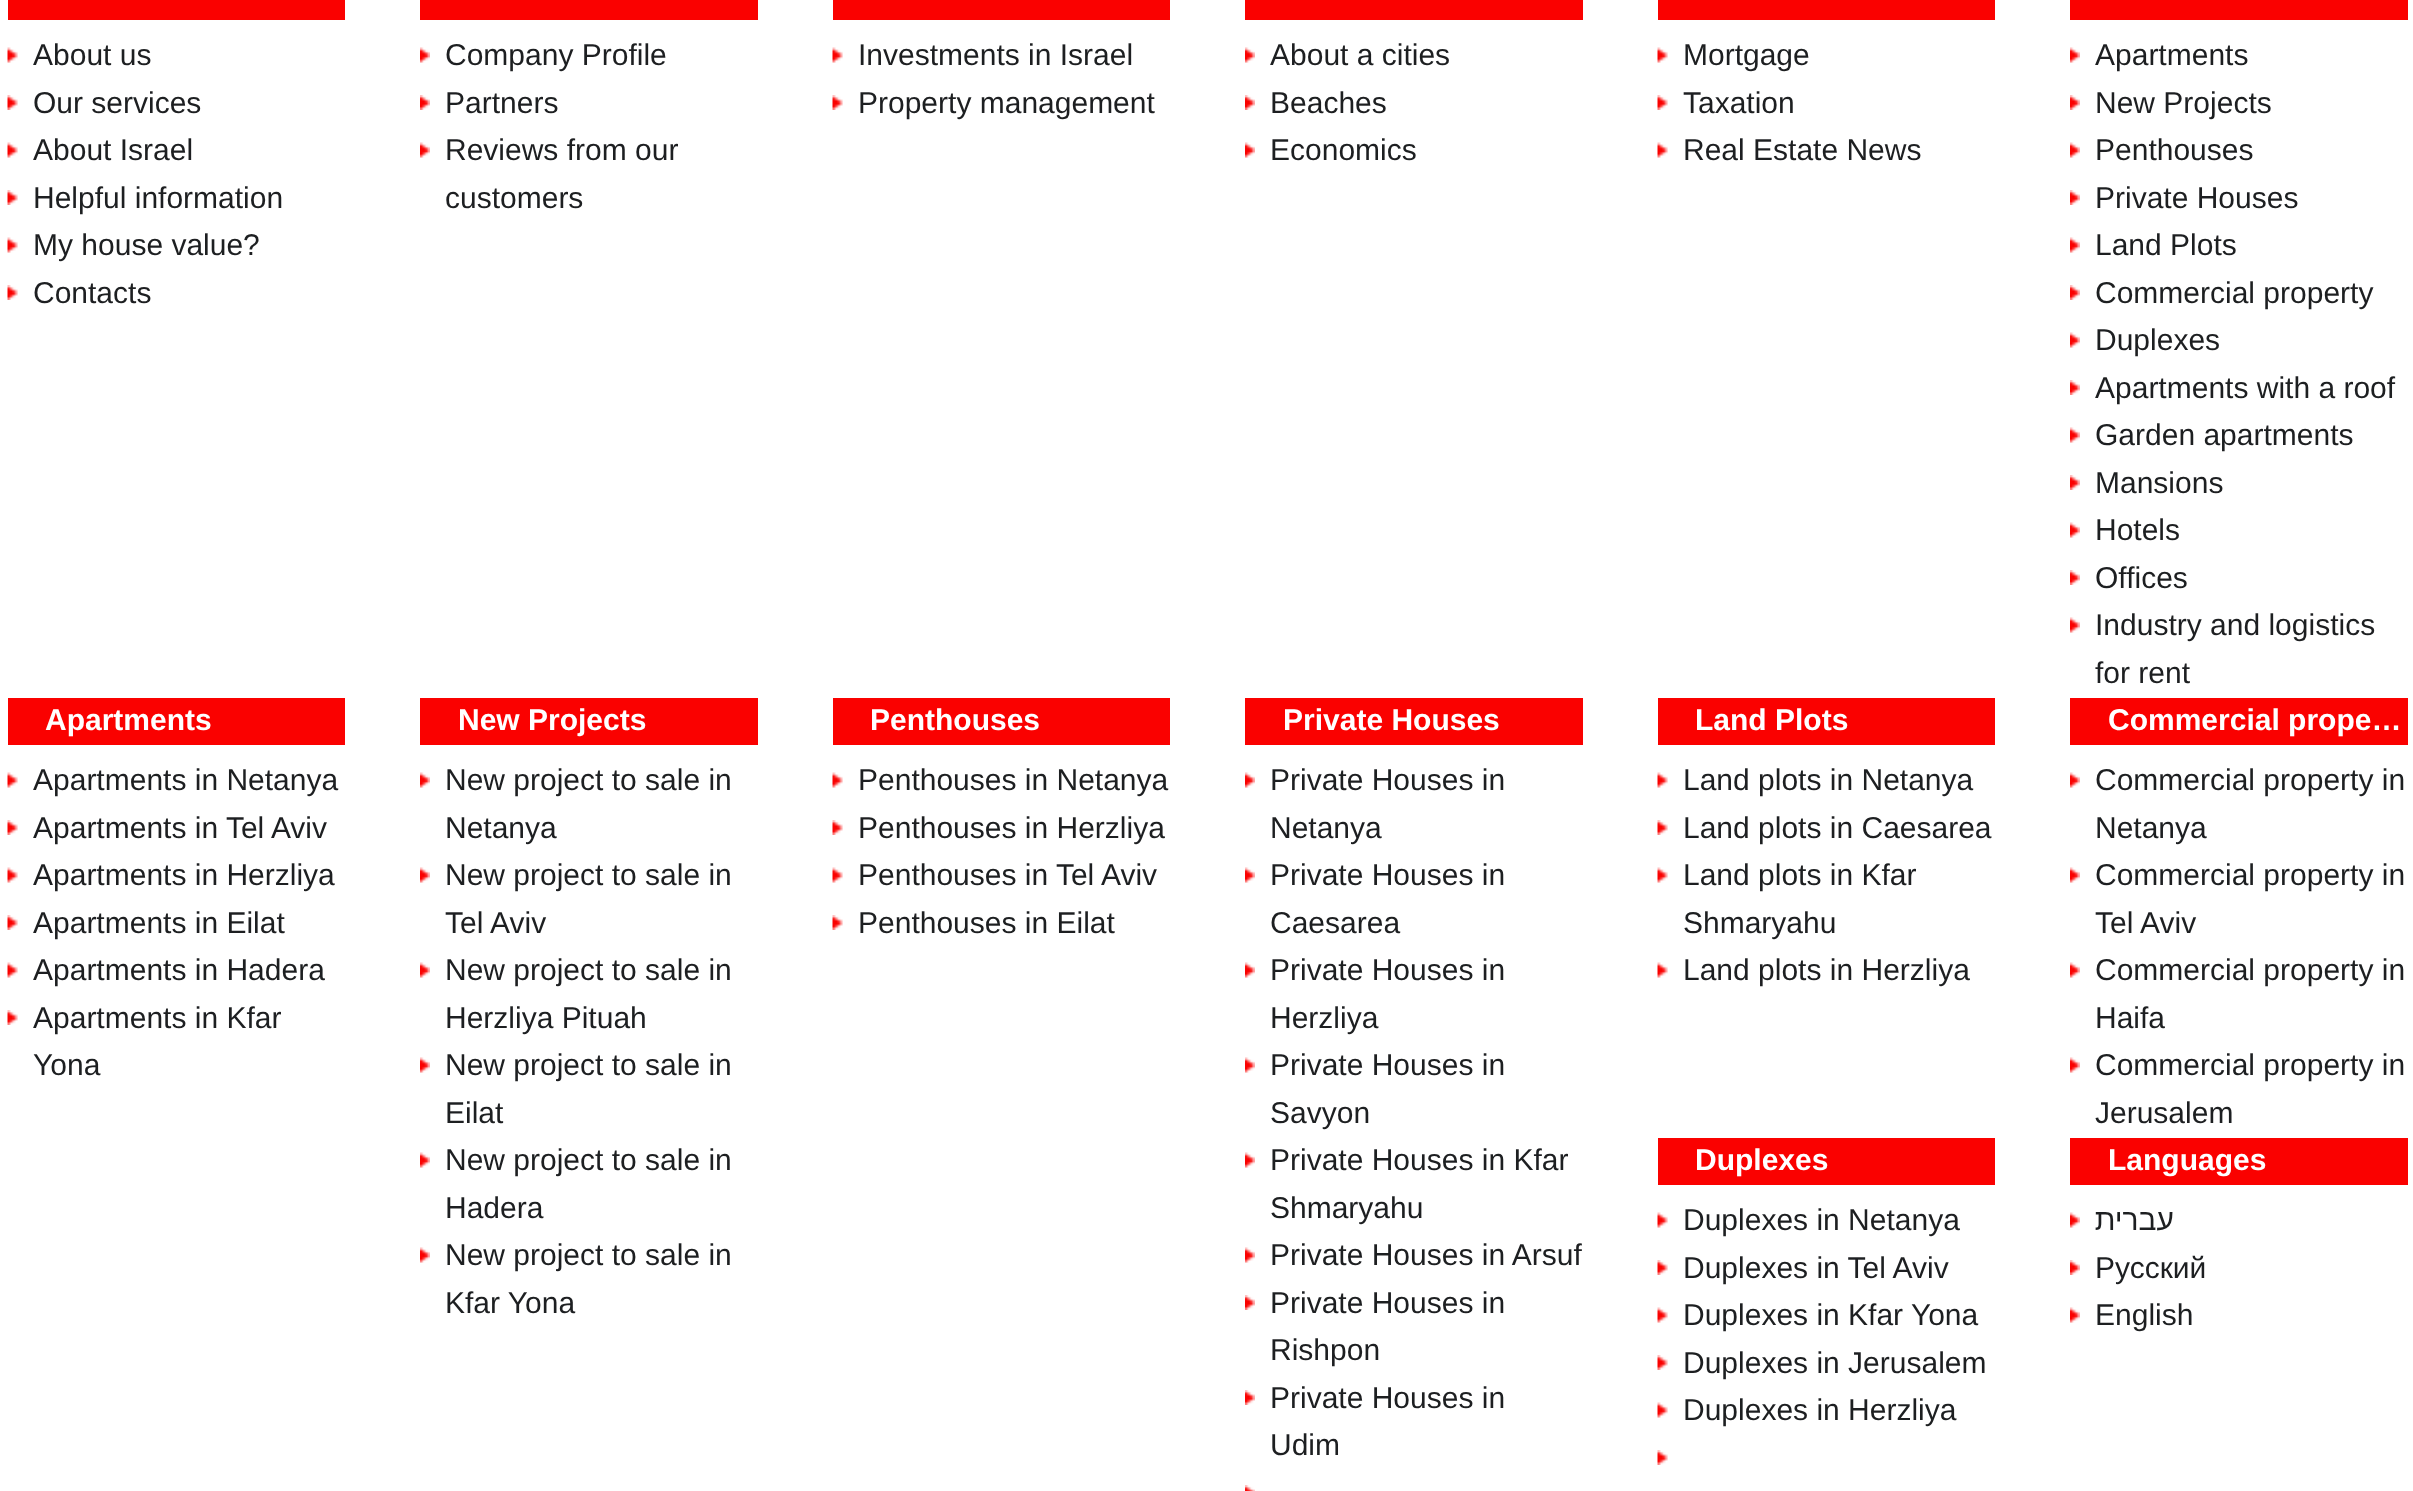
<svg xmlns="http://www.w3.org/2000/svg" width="2413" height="1491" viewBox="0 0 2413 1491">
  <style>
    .t1 { font: 30px Liberation Sans; fill: #1d1f21; }
    .t2 { font: bold 30px Liberation Sans; fill: #fff; }
    .t3 { font: 30px Liberation Sans; direction: rtl; fill: #1d1f21; }
  </style>
  <rect width="100%" height="100%" fill="#fff"/>
  <rect x="8" y="0" width="337" height="20" fill="#fa0100"/>
  <image x="7" y="47" width="11" height="16" href="images/1.png"/>
  <text x="33" y="65" class="t1">About us</text>
  <image x="7" y="95" width="11" height="15" href="images/2.png"/>
  <text x="33" y="113" class="t1">Our services</text>
  <image x="7" y="142" width="11" height="16" href="images/1.png"/>
  <text x="33" y="160" class="t1">About Israel</text>
  <image x="7" y="190" width="11" height="15" href="images/2.png"/>
  <text x="33" y="208" class="t1">Helpful information</text>
  <image x="7" y="237" width="11" height="16" href="images/1.png"/>
  <text x="33" y="255" class="t1">My house value?</text>
  <image x="7" y="285" width="11" height="15" href="images/2.png"/>
  <text x="33" y="303" class="t1">Contacts</text>
  <rect x="420" y="0" width="338" height="20" fill="#fa0100"/>
  <image x="420" y="47" width="10" height="16" href="images/3.png"/>
  <text x="445" y="65" class="t1">Company Profile</text>
  <image x="420" y="95" width="10" height="15" href="images/4.png"/>
  <text x="445" y="113" class="t1">Partners</text>
  <image x="420" y="142" width="10" height="16" href="images/3.png"/>
  <text x="445" y="160" class="t1">Reviews from our</text>
  <text x="445" y="208" class="t1">customers</text>
  <rect x="833" y="0" width="337" height="20" fill="#fa0100"/>
  <image x="832" y="47" width="11" height="16" href="images/5.png"/>
  <text x="858" y="65" class="t1">Investments in Israel</text>
  <image x="832" y="95" width="11" height="15" href="images/6.png"/>
  <text x="858" y="113" class="t1">Property management</text>
  <rect x="1245" y="0" width="338" height="20" fill="#fa0100"/>
  <image x="1245" y="47" width="10" height="16" href="images/7.png"/>
  <text x="1270" y="65" class="t1">About a cities</text>
  <image x="1245" y="95" width="10" height="15" href="images/8.png"/>
  <text x="1270" y="113" class="t1">Beaches</text>
  <image x="1245" y="142" width="10" height="16" href="images/7.png"/>
  <text x="1270" y="160" class="t1">Economics</text>
  <rect x="1658" y="0" width="337" height="20" fill="#fa0100"/>
  <image x="1657" y="47" width="11" height="16" href="images/5.png"/>
  <text x="1683" y="65" class="t1">Mortgage</text>
  <image x="1657" y="95" width="11" height="15" href="images/6.png"/>
  <text x="1683" y="113" class="t1">Taxation</text>
  <image x="1657" y="142" width="11" height="16" href="images/5.png"/>
  <text x="1683" y="160" class="t1">Real Estate News</text>
  <rect x="2070" y="0" width="338" height="20" fill="#fa0100"/>
  <image x="2070" y="47" width="10" height="16" href="images/7.png"/>
  <text x="2095" y="65" class="t1">Apartments</text>
  <image x="2070" y="95" width="10" height="15" href="images/8.png"/>
  <text x="2095" y="113" class="t1">New Projects</text>
  <image x="2070" y="142" width="10" height="16" href="images/7.png"/>
  <text x="2095" y="160" class="t1">Penthouses</text>
  <image x="2070" y="190" width="10" height="15" href="images/8.png"/>
  <text x="2095" y="208" class="t1">Private Houses</text>
  <image x="2070" y="237" width="10" height="16" href="images/7.png"/>
  <text x="2095" y="255" class="t1">Land Plots</text>
  <image x="2070" y="285" width="10" height="15" href="images/8.png"/>
  <text x="2095" y="303" class="t1">Commercial property</text>
  <image x="2070" y="332" width="10" height="16" href="images/7.png"/>
  <text x="2095" y="350" class="t1">Duplexes</text>
  <image x="2070" y="380" width="10" height="15" href="images/8.png"/>
  <text x="2095" y="398" class="t1">Apartments with a roof</text>
  <image x="2070" y="427" width="10" height="16" href="images/7.png"/>
  <text x="2095" y="445" class="t1">Garden apartments</text>
  <image x="2070" y="475" width="10" height="15" href="images/8.png"/>
  <text x="2095" y="493" class="t1">Mansions</text>
  <image x="2070" y="522" width="10" height="16" href="images/7.png"/>
  <text x="2095" y="540" class="t1">Hotels</text>
  <image x="2070" y="570" width="10" height="15" href="images/8.png"/>
  <text x="2095" y="588" class="t1">Offices</text>
  <image x="2070" y="617" width="10" height="16" href="images/7.png"/>
  <text x="2095" y="635" class="t1">Industry and logistics</text>
  <text x="2095" y="683" class="t1">for rent</text>
  <rect x="8" y="698" width="337" height="47" fill="#fa0100"/>
  <text x="45" y="730" class="t2">Apartments</text>
  <image x="7" y="772" width="11" height="16" href="images/1.png"/>
  <text x="33" y="790" class="t1">Apartments in Netanya</text>
  <image x="7" y="820" width="11" height="15" href="images/2.png"/>
  <text x="33" y="838" class="t1">Apartments in Tel Aviv</text>
  <image x="7" y="867" width="11" height="16" href="images/1.png"/>
  <text x="33" y="885" class="t1">Apartments in Herzliya</text>
  <image x="7" y="915" width="11" height="15" href="images/2.png"/>
  <text x="33" y="933" class="t1">Apartments in Eilat</text>
  <image x="7" y="962" width="11" height="16" href="images/1.png"/>
  <text x="33" y="980" class="t1">Apartments in Hadera</text>
  <image x="7" y="1010" width="11" height="15" href="images/2.png"/>
  <text x="33" y="1028" class="t1">Apartments in Kfar</text>
  <text x="33" y="1075" class="t1">Yona</text>
  <rect x="420" y="698" width="338" height="47" fill="#fa0100"/>
  <text x="458" y="730" class="t2">New Projects</text>
  <image x="420" y="772" width="10" height="16" href="images/3.png"/>
  <text x="445" y="790" class="t1">New project to sale in</text>
  <text x="445" y="838" class="t1">Netanya</text>
  <image x="420" y="867" width="10" height="16" href="images/3.png"/>
  <text x="445" y="885" class="t1">New project to sale in</text>
  <text x="445" y="933" class="t1">Tel Aviv</text>
  <image x="420" y="962" width="10" height="16" href="images/3.png"/>
  <text x="445" y="980" class="t1">New project to sale in</text>
  <text x="445" y="1028" class="t1">Herzliya Pituah</text>
  <image x="420" y="1057" width="10" height="16" href="images/3.png"/>
  <text x="445" y="1075" class="t1">New project to sale in</text>
  <text x="445" y="1123" class="t1">Eilat</text>
  <image x="420" y="1152" width="10" height="16" href="images/3.png"/>
  <text x="445" y="1170" class="t1">New project to sale in</text>
  <text x="445" y="1218" class="t1">Hadera</text>
  <image x="420" y="1247" width="10" height="16" href="images/3.png"/>
  <text x="445" y="1265" class="t1">New project to sale in</text>
  <text x="445" y="1313" class="t1">Kfar Yona</text>
  <rect x="833" y="698" width="337" height="47" fill="#fa0100"/>
  <text x="870" y="730" class="t2">Penthouses</text>
  <image x="832" y="772" width="11" height="16" href="images/5.png"/>
  <text x="858" y="790" class="t1">Penthouses in Netanya</text>
  <image x="832" y="820" width="11" height="15" href="images/6.png"/>
  <text x="858" y="838" class="t1">Penthouses in Herzliya</text>
  <image x="832" y="867" width="11" height="16" href="images/5.png"/>
  <text x="858" y="885" class="t1">Penthouses in Tel Aviv</text>
  <image x="832" y="915" width="11" height="15" href="images/6.png"/>
  <text x="858" y="933" class="t1">Penthouses in Eilat</text>
  <rect x="1245" y="698" width="338" height="47" fill="#fa0100"/>
  <text x="1283" y="730" class="t2">Private Houses</text>
  <image x="1245" y="772" width="10" height="16" href="images/7.png"/>
  <text x="1270" y="790" class="t1">Private Houses in</text>
  <text x="1270" y="838" class="t1">Netanya</text>
  <image x="1245" y="867" width="10" height="16" href="images/7.png"/>
  <text x="1270" y="885" class="t1">Private Houses in</text>
  <text x="1270" y="933" class="t1">Caesarea</text>
  <image x="1245" y="962" width="10" height="16" href="images/7.png"/>
  <text x="1270" y="980" class="t1">Private Houses in</text>
  <text x="1270" y="1028" class="t1">Herzliya</text>
  <image x="1245" y="1057" width="10" height="16" href="images/7.png"/>
  <text x="1270" y="1075" class="t1">Private Houses in</text>
  <text x="1270" y="1123" class="t1">Savyon</text>
  <image x="1245" y="1152" width="10" height="16" href="images/7.png"/>
  <text x="1270" y="1170" class="t1">Private Houses in Kfar</text>
  <text x="1270" y="1218" class="t1">Shmaryahu</text>
  <image x="1245" y="1247" width="10" height="16" href="images/7.png"/>
  <text x="1270" y="1265" class="t1">Private Houses in Arsuf</text>
  <image x="1245" y="1295" width="10" height="15" href="images/8.png"/>
  <text x="1270" y="1313" class="t1">Private Houses in</text>
  <text x="1270" y="1360" class="t1">Rishpon</text>
  <image x="1245" y="1390" width="10" height="15" href="images/8.png"/>
  <text x="1270" y="1408" class="t1">Private Houses in</text>
  <text x="1270" y="1455" class="t1">Udim</text>
  <image x="1245" y="1485" width="10" height="6" href="images/9.png"/>
  <rect x="1658" y="698" width="337" height="47" fill="#fa0100"/>
  <text x="1695" y="730" class="t2">Land Plots</text>
  <image x="1657" y="772" width="11" height="16" href="images/5.png"/>
  <text x="1683" y="790" class="t1">Land plots in Netanya</text>
  <image x="1657" y="820" width="11" height="15" href="images/6.png"/>
  <text x="1683" y="838" class="t1">Land plots in Caesarea</text>
  <image x="1657" y="867" width="11" height="16" href="images/5.png"/>
  <text x="1683" y="885" class="t1">Land plots in Kfar</text>
  <text x="1683" y="933" class="t1">Shmaryahu</text>
  <image x="1657" y="962" width="11" height="16" href="images/5.png"/>
  <text x="1683" y="980" class="t1">Land plots in Herzliya</text>
  <rect x="2070" y="698" width="338" height="47" fill="#fa0100"/>
  <text x="2108" y="730" class="t2">Commercial prope…</text>
  <image x="2070" y="772" width="10" height="16" href="images/7.png"/>
  <text x="2095" y="790" class="t1">Commercial property in</text>
  <text x="2095" y="838" class="t1">Netanya</text>
  <image x="2070" y="867" width="10" height="16" href="images/7.png"/>
  <text x="2095" y="885" class="t1">Commercial property in</text>
  <text x="2095" y="933" class="t1">Tel Aviv</text>
  <image x="2070" y="962" width="10" height="16" href="images/7.png"/>
  <text x="2095" y="980" class="t1">Commercial property in</text>
  <text x="2095" y="1028" class="t1">Haifa</text>
  <image x="2070" y="1057" width="10" height="16" href="images/7.png"/>
  <text x="2095" y="1075" class="t1">Commercial property in</text>
  <text x="2095" y="1123" class="t1">Jerusalem</text>
  <rect x="1658" y="1138" width="337" height="47" fill="#fa0100"/>
  <text x="1695" y="1170" class="t2">Duplexes</text>
  <image x="1657" y="1212" width="11" height="16" href="images/5.png"/>
  <text x="1683" y="1230" class="t1">Duplexes in Netanya</text>
  <image x="1657" y="1260" width="11" height="15" href="images/6.png"/>
  <text x="1683" y="1278" class="t1">Duplexes in Tel Aviv</text>
  <image x="1657" y="1307" width="11" height="16" href="images/5.png"/>
  <text x="1683" y="1325" class="t1">Duplexes in Kfar Yona</text>
  <image x="1657" y="1355" width="11" height="15" href="images/6.png"/>
  <text x="1683" y="1373" class="t1">Duplexes in Jerusalem</text>
  <image x="1657" y="1402" width="11" height="16" href="images/5.png"/>
  <text x="1683" y="1420" class="t1">Duplexes in Herzliya</text>
  <image x="1657" y="1450" width="11" height="15" href="images/6.png"/>
  <rect x="2070" y="1138" width="338" height="47" fill="#fa0100"/>
  <text x="2108" y="1170" class="t2">Languages</text>
  <image x="2070" y="1212" width="10" height="16" href="images/7.png"/>
  <text x="2174" y="1230" class="t3">עברית</text>
  <image x="2070" y="1260" width="10" height="15" href="images/8.png"/>
  <text x="2095" y="1278" class="t1">Pусский</text>
  <image x="2070" y="1307" width="10" height="16" href="images/7.png"/>
  <text x="2095" y="1325" class="t1">English</text>
</svg>
